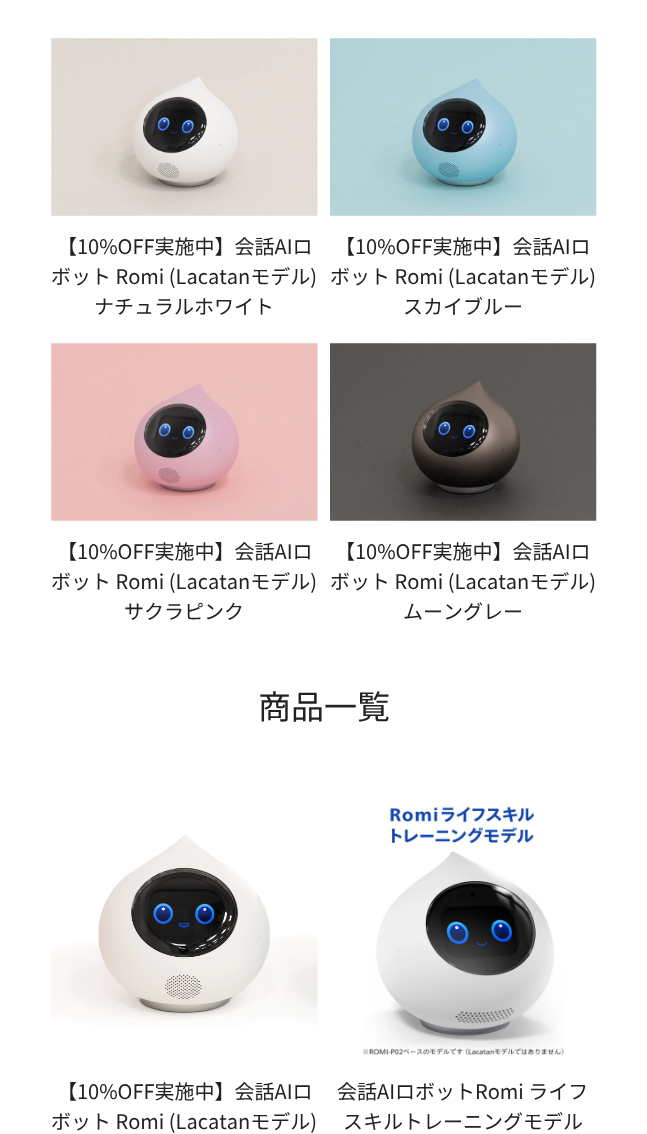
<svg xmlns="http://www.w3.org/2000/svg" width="647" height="1134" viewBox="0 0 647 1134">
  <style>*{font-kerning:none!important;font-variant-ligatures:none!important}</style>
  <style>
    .t1 { font: 20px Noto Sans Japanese; fill: #212121; }
    .t2 { font: 33px Noto Sans Japanese; fill: #212121; }
  </style>
  <rect width="100%" height="100%" fill="#fff"/>
  <image x="51" y="38" width="267" height="178" href="images/1.png"/>
  <text x="57" y="254" class="t1">【10%OFF実施中】会話AIロ</text>
  <text x="51" y="284" class="t1">ボット Romi (Lacatanモデル)</text>
  <text x="94" y="314" class="t1">ナチュラルホワイト</text>
  <image x="330" y="38" width="267" height="178" href="images/2.png"/>
  <text x="335" y="254" class="t1">【10%OFF実施中】会話AIロ</text>
  <text x="330" y="284" class="t1">ボット Romi (Lacatanモデル)</text>
  <text x="403" y="314" class="t1">スカイブルー</text>
  <image x="51" y="343" width="267" height="178" href="images/3.png"/>
  <text x="57" y="559" class="t1">【10%OFF実施中】会話AIロ</text>
  <text x="51" y="589" class="t1">ボット Romi (Lacatanモデル)</text>
  <text x="124" y="619" class="t1">サクラピンク</text>
  <image x="330" y="343" width="267" height="178" href="images/4.png"/>
  <text x="335" y="559" class="t1">【10%OFF実施中】会話AIロ</text>
  <text x="330" y="589" class="t1">ボット Romi (Lacatanモデル)</text>
  <text x="403" y="619" class="t1">ムーングレー</text>
  <text x="258" y="719" class="t2">商品一覧</text>
  <image x="51" y="835" width="267" height="210" href="images/5.png"/>
  <text x="57" y="1099" class="t1">【10%OFF実施中】会話AIロ</text>
  <text x="51" y="1129" class="t1">ボット Romi (Lacatanモデル)</text>
  <image x="363" y="806" width="201" height="250" href="images/6.png"/>
  <text x="337" y="1099" class="t1">会話AIロボットRomi ライフ</text>
  <text x="343" y="1129" class="t1">スキルトレーニングモデル</text>
</svg>
